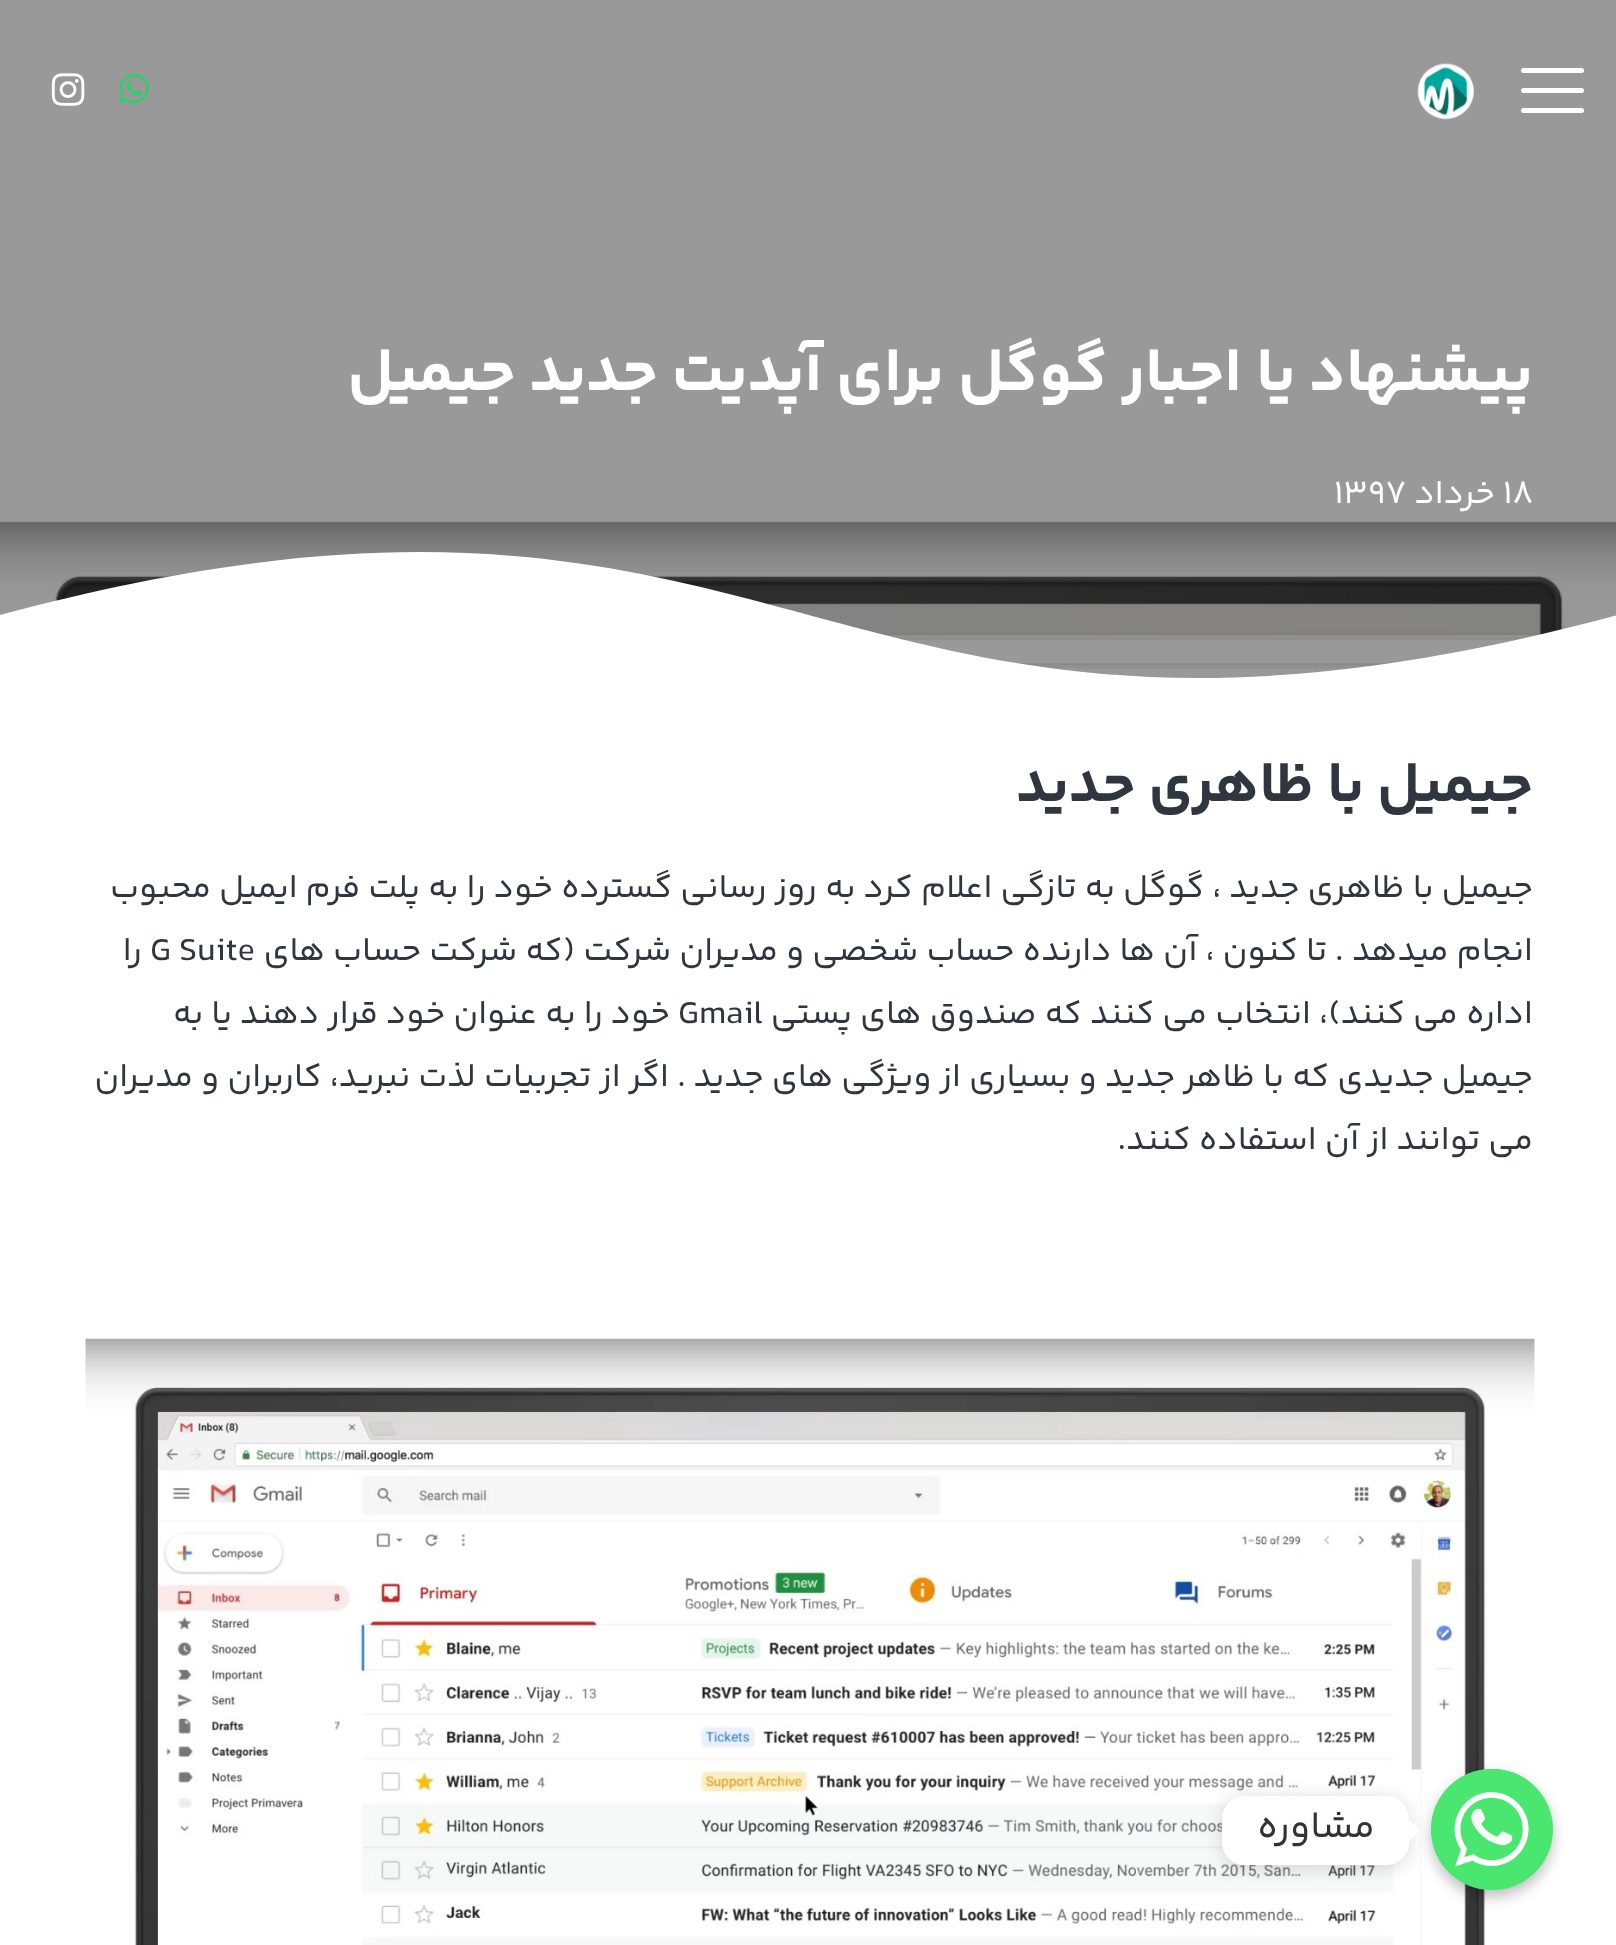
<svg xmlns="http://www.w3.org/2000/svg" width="1616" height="1945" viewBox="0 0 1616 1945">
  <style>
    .t1 { font: bold 63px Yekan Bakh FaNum; direction: rtl; fill: #fff; }
    .t2 { font: 33.75px Yekan Bakh FaNum; fill: #fff; }
    .t3 { font: 33.75px Yekan Bakh FaNum; direction: rtl; fill: #fff; }
    .t4 { font: bold 58.5px Yekan Bakh FaNum; direction: rtl; fill: #303640; }
    .t5 { font: 33.75px Yekan Bakh FaNum; direction: rtl; fill: #303640; }
    .t6 { font: 33.75px Yekan Bakh FaNum; fill: #303640; }
    .t7 { font: 38px Yekan Bakh FaNum; direction: rtl; fill: #333; }
  </style>
  <defs>
    <clipPath id="clip1"><path d="M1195 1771H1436V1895H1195ZM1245 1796H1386C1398.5 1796 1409 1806.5 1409 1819V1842C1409 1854.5 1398.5 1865 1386 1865H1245C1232.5 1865 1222 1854.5 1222 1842V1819C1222 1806.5 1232.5 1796 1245 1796Z" clip-rule="evenodd"/></clipPath>
  </defs>
  <rect width="100%" height="100%" fill="#fff"/>
  <rect x="0" y="0" width="1616" height="523" fill="#999"/>
  <rect x="1521" y="88" width="63" height="5" rx="2.5" fill="#fff"/>
  <rect x="1521" y="68" width="63" height="5" rx="2.5" fill="#fff"/>
  <rect x="1521" y="108" width="63" height="5" rx="2.5" fill="#fff"/>
  <image x="1417" y="63" width="57" height="57" href="images/1.png"/>
  <image x="119" y="73" width="30" height="31" href="images/2.png"/>
  <image x="51" y="73" width="34" height="33" href="images/3.png"/>
  <text x="1533" y="390" class="t1">پیشنهاد یا اجبار گوگل برای آپدیت جدید جیمیل</text>
  <text x="1503" y="503" class="t2">۱۸</text>
  <text x="1495" y="503" class="t3">خرداد</text>
  <text x="1334" y="503" class="t2">۱۳۹۷</text>
  <image x="0" y="521" width="1616" height="157" href="images/4.png"/>
  <path d="M0 615C809 397 809 833 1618 615V688H0Z" fill="#fff"/>
  <text x="1533" y="801" class="t4">جیمیل با ظاهری جدید</text>
  <text x="1533" y="897" class="t5">جیمیل با ظاهری جدید ، گوگل به تازگی اعلام کرد به روز رسانی گسترده خود را به پلت فرم ایمیل محبوب</text>
  <text x="1533" y="960" class="t5">انجام میدهد .</text>
  <text x="1327" y="960" class="t5">تا کنون ، آن ها دارنده حساب شخصی و مدیران شرکت (که شرکت حساب های</text>
  <text x="150" y="960" class="t6">G Suite</text>
  <text x="142" y="960" class="t5">را</text>
  <text x="1533" y="1023" class="t5">اداره می کنند)، انتخاب می کنند که صندوق های پستی</text>
  <text x="678" y="1023" class="t6">Gmail</text>
  <text x="670" y="1023" class="t5">خود را به عنوان خود قرار دهند یا به</text>
  <text x="1533" y="1086" class="t5">جیمیل جدیدی که با ظاهر جدید و بسیاری از ویژگی های جدید</text>
  <text x="677" y="1086" class="t6">.</text>
  <text x="669" y="1086" class="t5">اگر از تجربیات لذت نبرید، کاربران و مدیران</text>
  <text x="1533" y="1149" class="t5">می توانند از آن استفاده کنند.</text>
  <image x="85" y="1338" width="1450" height="607" href="images/5.png"/>
  <rect x="1431" y="1775" width="122" height="122" rx="61" fill="#00000040" filter="blur(7px)"/>
  <rect x="1431" y="1769" width="122" height="121" rx="60.5" fill="#49e670"/>
  <image x="1431" y="1769" width="111" height="121" href="images/6.png"/>
  <g clip-path="url(#clip1)">
    <rect x="1222" y="1798" width="187" height="70" rx="23" fill="#00000026" filter="blur(8.5px)"/>
  </g>
  <rect x="1222" y="1796" width="187" height="69" rx="23" fill="#fff"/>
  <path d="M1408.5 1841.5V1819L1420 1830.5Z" fill="#fff"/>
  <text x="1375" y="1837" class="t7">مشاوره</text>
</svg>
